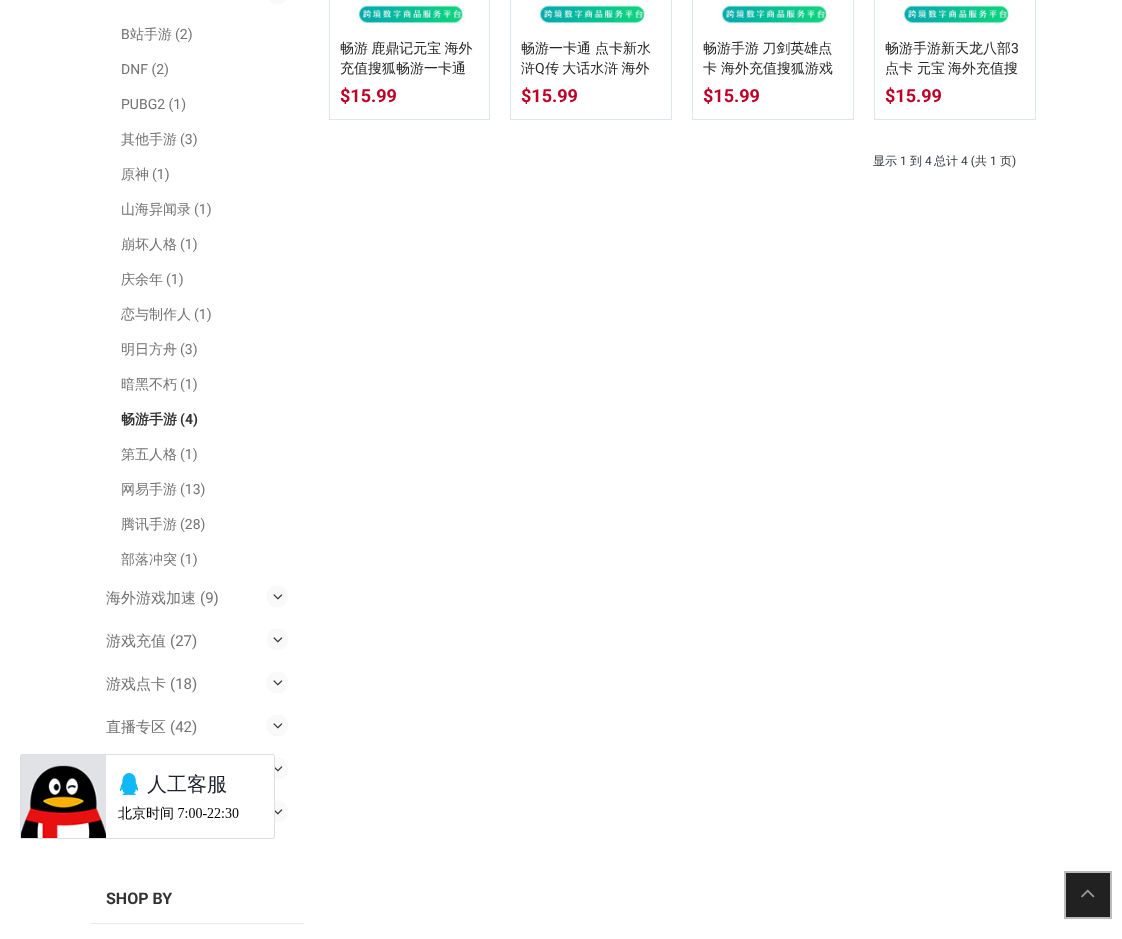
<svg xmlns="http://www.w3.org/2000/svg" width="1122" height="939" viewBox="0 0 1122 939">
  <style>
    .t1 { font: 14px Roboto; fill: #727272; }
    .t2 { font: 500 14px WenQuanYi Zen Hei; fill: #727272; }
    .t3 { font: bold 14px WenQuanYi Zen Hei; fill: #333; }
    .t4 { font: bold 14px Roboto; fill: #333; }
    .t5 { font: 500 15px WenQuanYi Zen Hei; fill: #727272; }
    .t6 { font: 15px Roboto; fill: #727272; }
    .t7 { font: bold 16px Roboto; fill: #333; }
    .t8 { font: 500 14px WenQuanYi Zen Hei; fill: #242424; }
    .t9 { font: bold 18px Roboto; fill: #bd0028; }
    .t10 { font: 14px Roboto; fill: #242424; }
    .t11 { font: 500 12px WenQuanYi Zen Hei; fill: #303841; }
    .t12 { font: 12px Roboto; fill: #303841; }
  </style>
  <rect width="100%" height="100%" fill="#fff"/>
  <path d="M277.5 4.5C263 4.5 263-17.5 277.5-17.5C292-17.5 292 4.5 277.5 4.5Z" fill="#f9f9f9"/>
  <text x="121" y="39" class="t1">B</text>
  <text x="130" y="39" class="t2">站手游</text>
  <text x="175" y="39" class="t1">(2)</text>
  <text x="121" y="74" class="t1">DNF (2)</text>
  <text x="121" y="109" class="t1">PUBG2 (1)</text>
  <text x="121" y="144" class="t2">其他手游</text>
  <text x="180" y="144" class="t1">(3)</text>
  <text x="121" y="179" class="t2">原神</text>
  <text x="152" y="179" class="t1">(1)</text>
  <text x="121" y="214" class="t2">山海异闻录</text>
  <text x="194" y="214" class="t1">(1)</text>
  <text x="121" y="249" class="t2">崩坏人格</text>
  <text x="180" y="249" class="t1">(1)</text>
  <text x="121" y="284" class="t2">庆余年</text>
  <text x="166" y="284" class="t1">(1)</text>
  <text x="121" y="319" class="t2">恋与制作人</text>
  <text x="194" y="319" class="t1">(1)</text>
  <text x="121" y="354" class="t2">明日方舟</text>
  <text x="180" y="354" class="t1">(3)</text>
  <text x="121" y="389" class="t2">暗黑不朽</text>
  <text x="180" y="389" class="t1">(1)</text>
  <text x="121" y="424" class="t3">畅游手游</text>
  <text x="180" y="424" class="t4">(4)</text>
  <text x="121" y="459" class="t2">第五人格</text>
  <text x="180" y="459" class="t1">(1)</text>
  <text x="121" y="494" class="t2">网易手游</text>
  <text x="180" y="494" class="t1">(13)</text>
  <text x="121" y="529" class="t2">腾讯手游</text>
  <text x="180" y="529" class="t1">(28)</text>
  <text x="121" y="564" class="t2">部落冲突</text>
  <text x="180" y="564" class="t1">(1)</text>
  <text x="106" y="603" class="t5">海外游戏加速</text>
  <text x="200" y="603" class="t6">(9)</text>
  <path d="M277.5 607.5C263 607.5 263 585.5 277.5 585.5C292 585.5 292 607.5 277.5 607.5Z" fill="#f9f9f9"/>
  <image x="273" y="594" width="10" height="6" href="images/1.png"/>
  <text x="106" y="646" class="t5">游戏充值</text>
  <text x="170" y="646" class="t6">(27)</text>
  <path d="M277.5 650.5C263 650.5 263 628.5 277.5 628.5C292 628.5 292 650.5 277.5 650.5Z" fill="#f9f9f9"/>
  <image x="273" y="637" width="10" height="6" href="images/1.png"/>
  <text x="106" y="689" class="t5">游戏点卡</text>
  <text x="170" y="689" class="t6">(18)</text>
  <path d="M277.5 693.5C263 693.5 263 671.5 277.5 671.5C292 671.5 292 693.5 277.5 693.5Z" fill="#f9f9f9"/>
  <image x="273" y="680" width="10" height="6" href="images/1.png"/>
  <text x="106" y="732" class="t5">直播专区</text>
  <text x="170" y="732" class="t6">(42)</text>
  <path d="M277.5 736.5C263 736.5 263 714.5 277.5 714.5C292 714.5 292 736.5 277.5 736.5Z" fill="#f9f9f9"/>
  <image x="273" y="723" width="10" height="6" href="images/1.png"/>
  <path d="M277.5 779.5C263 779.5 263 757.5 277.5 757.5C292 757.5 292 779.5 277.5 779.5Z" fill="#f9f9f9"/>
  <image x="275" y="766" width="8" height="6" href="images/2.png"/>
  <path d="M277.5 822.5C263 822.5 263 800.5 277.5 800.5C292 800.5 292 822.5 277.5 822.5Z" fill="#f9f9f9"/>
  <image x="275" y="809" width="8" height="6" href="images/2.png"/>
  <rect x="91" y="923" width="213" height="1" fill="#eaeaea"/>
  <text x="106" y="904" class="t7">SHOP BY</text>
  <rect x="329.5" y="-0.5" width="160" height="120" fill="none" stroke="#e0e6ef"/>
  <image x="350" y="0" width="116" height="24" href="images/3.png"/>
  <text x="340" y="53" word-spacing="-1" class="t8">畅游 鹿鼎记元宝 海外</text>
  <text x="340" y="73" class="t8">充值搜狐畅游一卡通</text>
  <text x="340" y="102" class="t9">$15.99</text>
  <rect x="510.5" y="-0.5" width="161" height="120" fill="none" stroke="#e0e6ef"/>
  <image x="532" y="0" width="116" height="24" href="images/4.png"/>
  <text x="521" y="53" class="t8">畅游一卡通</text>
  <text x="595" y="53" class="t8">点卡新水</text>
  <text x="521" y="73" class="t8">浒</text>
  <text x="535" y="73" class="t10">Q</text>
  <text x="545" y="73" word-spacing="-1" class="t8">传 大话水浒 海外</text>
  <text x="521" y="102" class="t9">$15.99</text>
  <rect x="692.5" y="-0.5" width="161" height="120" fill="none" stroke="#e0e6ef"/>
  <image x="714" y="0" width="116" height="24" href="images/5.png"/>
  <text x="703" y="53" word-spacing="-1" class="t8">畅游手游 刀剑英雄点</text>
  <text x="703" y="73" class="t8">卡</text>
  <text x="721" y="73" class="t8">海外充值搜狐游戏</text>
  <text x="703" y="102" class="t9">$15.99</text>
  <rect x="874.5" y="-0.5" width="161" height="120" fill="none" stroke="#e0e6ef"/>
  <image x="896" y="0" width="116" height="24" href="images/6.png"/>
  <text x="885" y="53" class="t8">畅游手游新天龙八部</text>
  <text x="1011" y="53" class="t10">3</text>
  <text x="885" y="73" class="t8">点卡</text>
  <text x="917" y="73" class="t8">元宝</text>
  <text x="948" y="73" class="t8">海外充值搜</text>
  <text x="885" y="102" class="t9">$15.99</text>
  <text x="873" y="165" class="t11">显示</text>
  <text x="900" y="165" class="t12">1</text>
  <text x="910" y="165" class="t11">到</text>
  <text x="925" y="165" class="t12">4</text>
  <text x="934" y="165" class="t11">总计</text>
  <text x="961" y="165" class="t12">4 (</text>
  <text x="975" y="165" class="t11">共</text>
  <text x="990" y="165" class="t12">1</text>
  <text x="1000" y="165" class="t11">页</text>
  <text x="1012" y="165" class="t12">)</text>
  <image x="20" y="754" width="255" height="85" href="images/7.png"/>
  <rect x="1065" y="872" width="46" height="46" fill="#212121" stroke="#bcbcbc" stroke-width="2"/>
  <image x="1081" y="889" width="14" height="9" href="images/8.png"/>
</svg>
